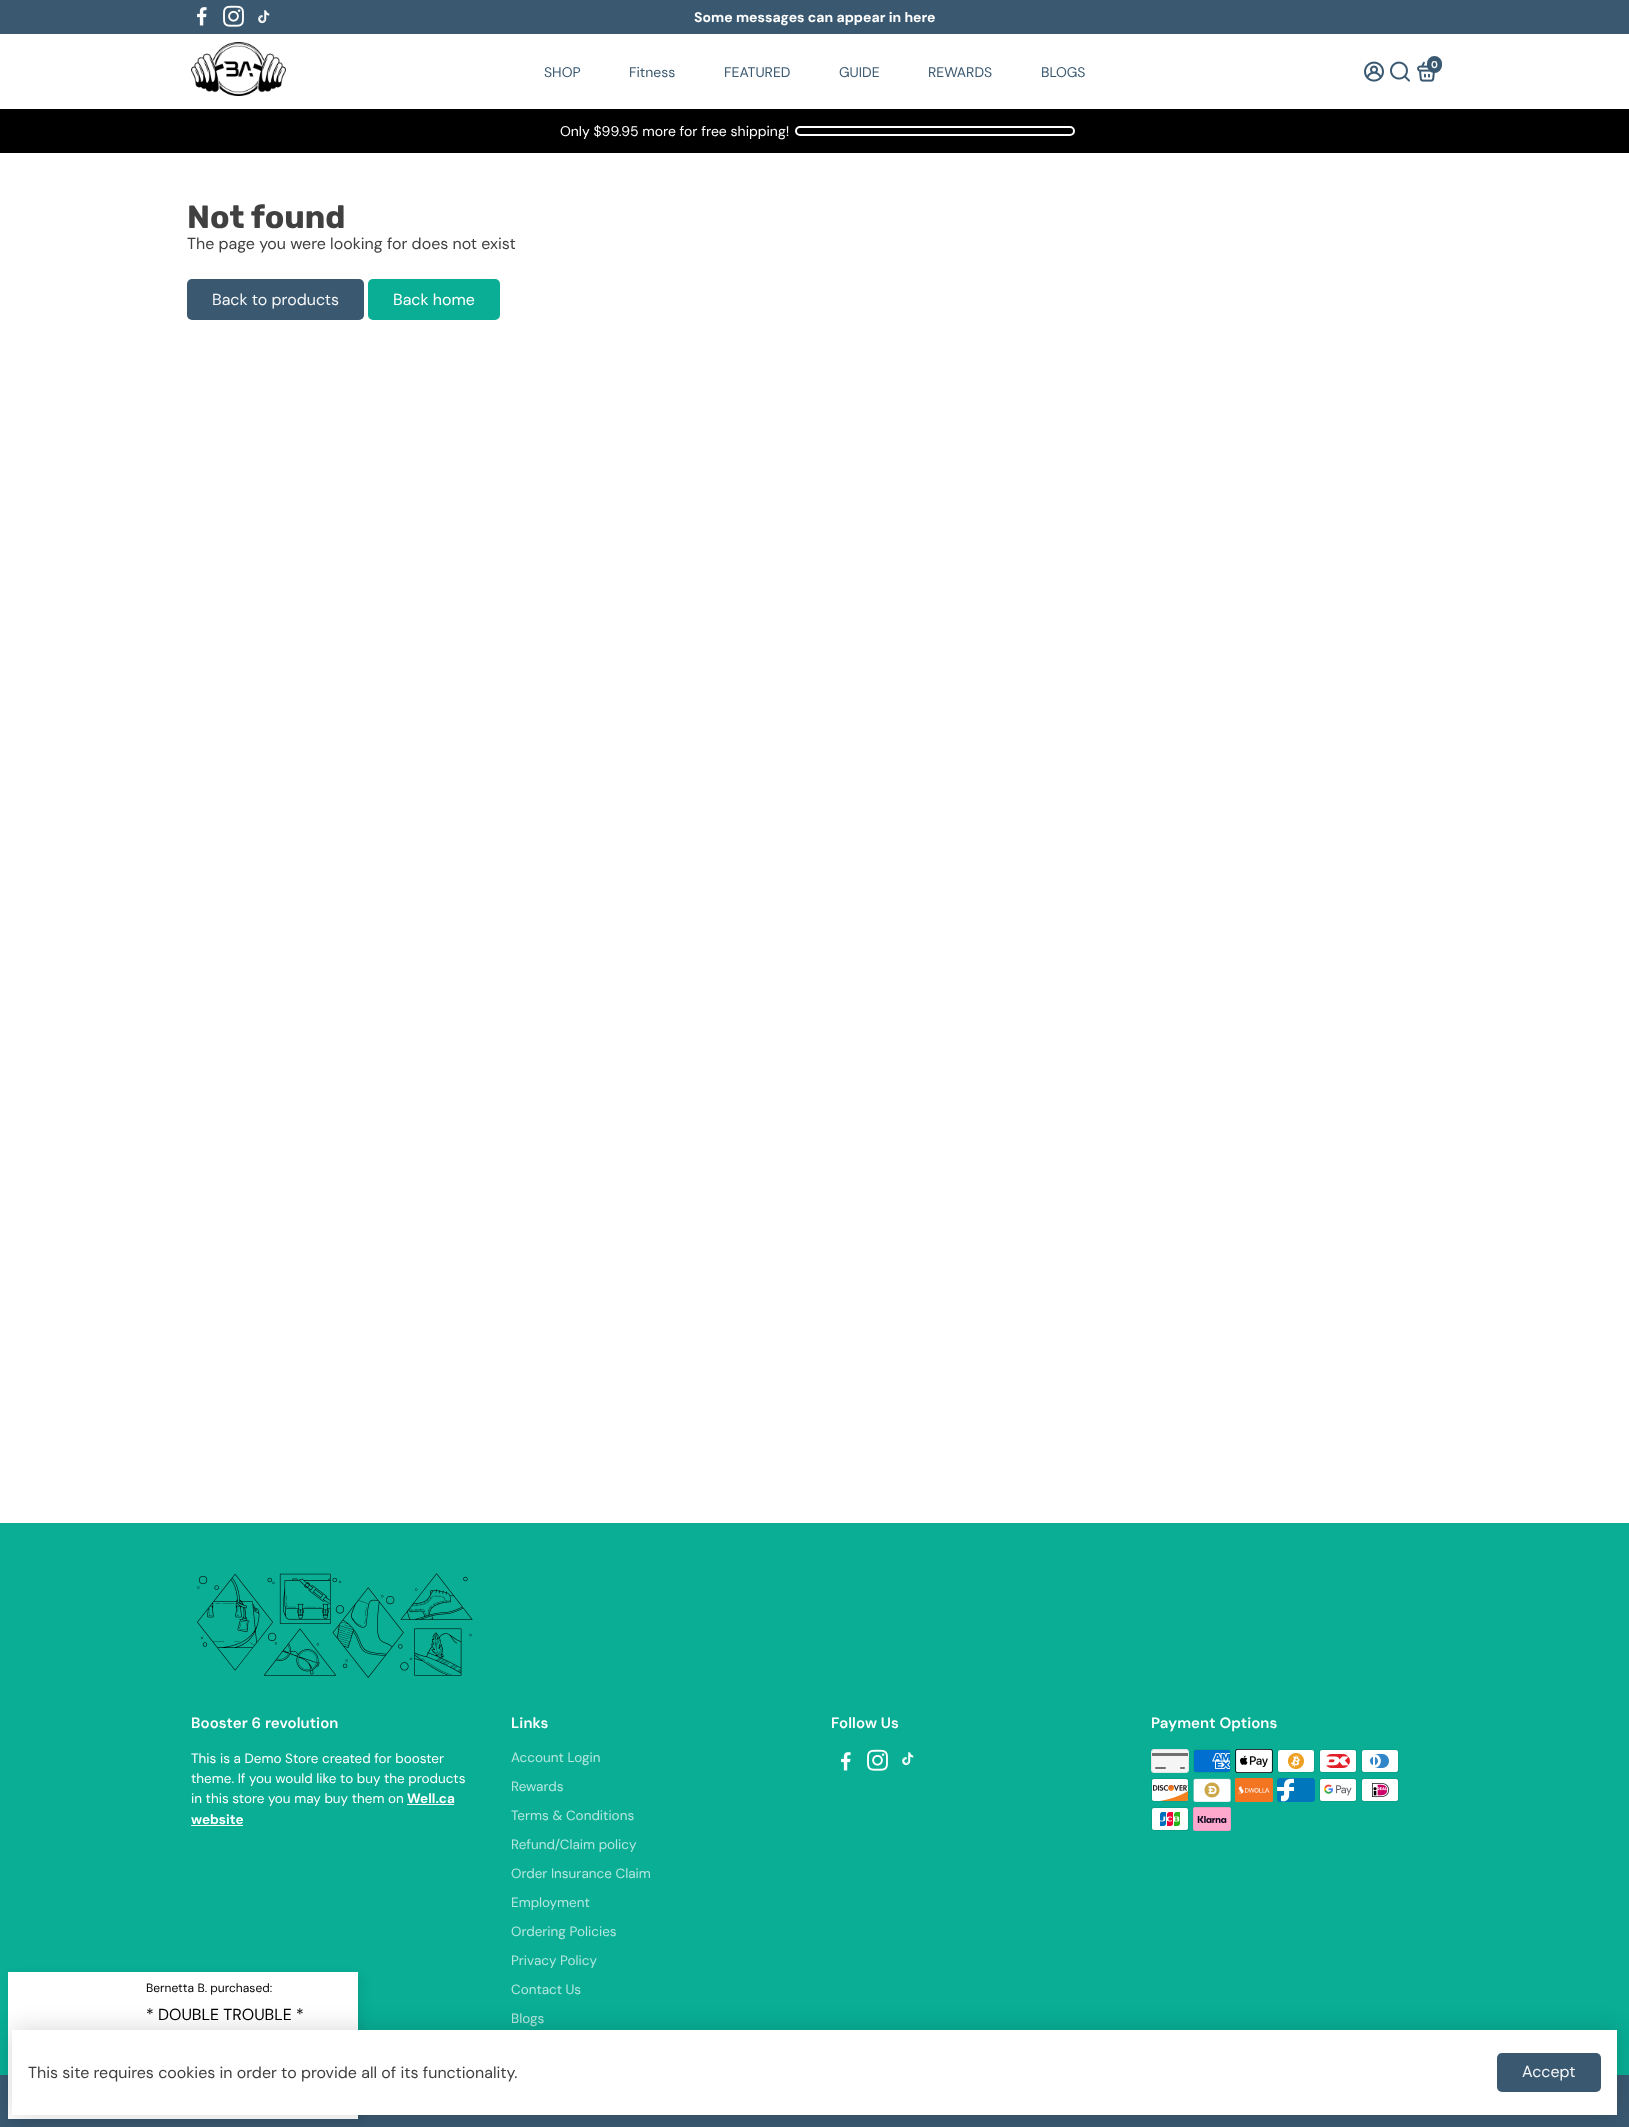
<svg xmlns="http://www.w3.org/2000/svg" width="1629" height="2127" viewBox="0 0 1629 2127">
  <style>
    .t1 { font: bold 14px DM Sans; fill: #fff; }
    .t2 { font: bold 10px 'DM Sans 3'; fill: #f5f6f8; }
    .t3 { font: 14px DM Sans; fill: #3a5971; }
    .t4 { font: 14px DM Sans; fill: #fff; }
    .t5 { font: bold 32px Rubik; fill: #404040; }
    .t6 { font: 16px 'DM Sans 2'; fill: #404040; }
    .t7 { font: 16px 'DM Sans 2'; fill: #f5f6f8; }
    .t8 { font: 16px 'DM Sans 2'; fill: #fff; }
    .t9 { font: 600 15px DM Sans; letter-spacing: 0.1px; fill: #fff; }
    .t10 { font: 13.5px 'DM Sans 3'; fill: #fff; }
    .t11 { font: bold 13.5px 'DM Sans 2'; fill: #fff; }
    .t12 { font: 13.5px 'DM Sans 3'; fill: #b5e7df; }
    .t13 { font: 12px 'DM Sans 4'; fill: #000; }
    .t14 { font: 16px 'DM Sans 2'; fill: #000; }
  </style>
  <rect width="100%" height="100%" fill="#fff"/>
  <rect x="0" y="0" width="1629" height="34" fill="#3a5971"/>
  <image x="197" y="7" width="10" height="19" href="images/1.png"/>
  <image x="223" y="5" width="21" height="22" href="images/2.png"/>
  <image x="258" y="10" width="12" height="14" href="images/3.png"/>
  <text x="694" y="22" class="t1">Some messages can appear in here</text>
  <image x="191" y="42" width="95" height="54" href="images/4.png"/>
  <image x="1364" y="61" width="20" height="21" href="images/5.png"/>
  <image x="1390" y="61" width="20" height="21" href="images/6.png"/>
  <image x="1417" y="61" width="18" height="21" href="images/7.png"/>
  <rect x="1427" y="56" width="15" height="17" rx="7.5" fill="#3a5971"/>
  <text x="1431" y="68" class="t2">0</text>
  <text x="544" y="77" class="t3">SHOP</text>
  <text x="629" y="77" class="t3">Fitness</text>
  <text x="724" y="77" class="t3">FEATURED</text>
  <text x="839" y="77" class="t3">GUIDE</text>
  <text x="928" y="77" class="t3">REWARDS</text>
  <text x="1041" y="77" class="t3">BLOGS</text>
  <rect x="0" y="109" width="1629" height="44" fill="#000"/>
  <text x="560" y="136" class="t4">Only $99.95 more for free shipping!</text>
  <rect x="796" y="127" width="278" height="8" rx="4" fill="none" stroke="#fff" stroke-width="2"/>
  <text x="187" y="228" class="t5">Not found</text>
  <text x="187" y="249" class="t6">The page you were looking for does not exist</text>
  <rect x="187" y="279" width="177" height="41" rx="5" fill="#3a5971"/>
  <text x="212" y="305" class="t7">Back to products</text>
  <rect x="368" y="279" width="132" height="41" rx="5" fill="#09ae95"/>
  <text x="393" y="305" class="t8">Back home</text>
  <rect x="0" y="1523" width="1629" height="552" fill="#09ae95"/>
  <image x="197" y="1573" width="276" height="105" href="images/8.png"/>
  <text x="191" y="1728" class="t9">Booster 6 revolution</text>
  <text x="191" y="1763" class="t10">This is a Demo Store created for booster</text>
  <text x="191" y="1783" class="t10">theme. If you would like to buy the products</text>
  <text x="191" y="1803" class="t10">in this store you may buy them on</text>
  <text x="407" y="1803" class="t11">Well.ca</text>
  <rect x="407" y="1804" width="47" height="1" fill="#fff"/>
  <text x="191" y="1824" class="t11">website</text>
  <rect x="191" y="1825" width="52" height="1" fill="#fff"/>
  <text x="511" y="1728" class="t9">Links</text>
  <text x="511" y="1762" class="t12">Account Login</text>
  <text x="511" y="1791" class="t12">Rewards</text>
  <text x="511" y="1820" class="t12">Terms &amp; Conditions</text>
  <text x="511" y="1849" class="t12">Refund/Claim policy</text>
  <text x="511" y="1878" class="t12">Order Insurance Claim</text>
  <text x="511" y="1907" class="t12">Employment</text>
  <text x="511" y="1936" class="t12">Ordering Policies</text>
  <text x="511" y="1965" class="t12">Privacy Policy</text>
  <text x="511" y="1994" class="t12">Contact Us</text>
  <text x="511" y="2023" class="t12">Blogs</text>
  <text x="831" y="1728" class="t9">Follow Us</text>
  <image x="841" y="1752" width="10" height="19" href="images/9.png"/>
  <image x="867" y="1749" width="21" height="22" href="images/10.png"/>
  <image x="902" y="1752" width="12" height="14" href="images/11.png"/>
  <text x="1151" y="1728" class="t9">Payment Options</text>
  <image x="1151" y="1749" width="38" height="24" href="images/12.png"/>
  <image x="1193" y="1749" width="38" height="24" href="images/13.png"/>
  <image x="1235" y="1749" width="38" height="24" href="images/14.png"/>
  <image x="1277" y="1749" width="38" height="24" href="images/15.png"/>
  <image x="1319" y="1749" width="38" height="24" href="images/16.png"/>
  <image x="1361" y="1749" width="38" height="24" href="images/17.png"/>
  <image x="1151" y="1778" width="38" height="24" href="images/18.png"/>
  <image x="1193" y="1778" width="38" height="24" href="images/19.png"/>
  <image x="1235" y="1778" width="38" height="24" href="images/20.png"/>
  <image x="1277" y="1778" width="38" height="24" href="images/21.png"/>
  <image x="1319" y="1778" width="38" height="24" href="images/22.png"/>
  <image x="1361" y="1778" width="38" height="24" href="images/23.png"/>
  <image x="1151" y="1807" width="38" height="24" href="images/24.png"/>
  <image x="1193" y="1807" width="38" height="24" href="images/25.png"/>
  <rect x="0" y="2075" width="1629" height="52" fill="#3a5971"/>
  <rect x="11" y="1975" width="350" height="147" fill="#00000014" filter="blur(5px)"/>
  <rect x="8" y="1972" width="350" height="147" fill="#fff"/>
  <text x="146" y="1992" class="t13">Bernetta B. purchased:</text>
  <text x="146" y="2020" class="t14">* DOUBLE TROUBLE *</text>
  <rect x="12" y="2030" width="1605" height="85" fill="#00000029" filter="blur(12px)"/>
  <rect x="12" y="2030" width="1605" height="85" fill="#fff"/>
  <text x="28" y="2078" class="t6">This site requires cookies in order to provide all of its functionality.</text>
  <rect x="1497" y="2053" width="104" height="39" rx="5" fill="#3a5971"/>
  <text x="1522" y="2077" class="t7">Accept</text>
</svg>
